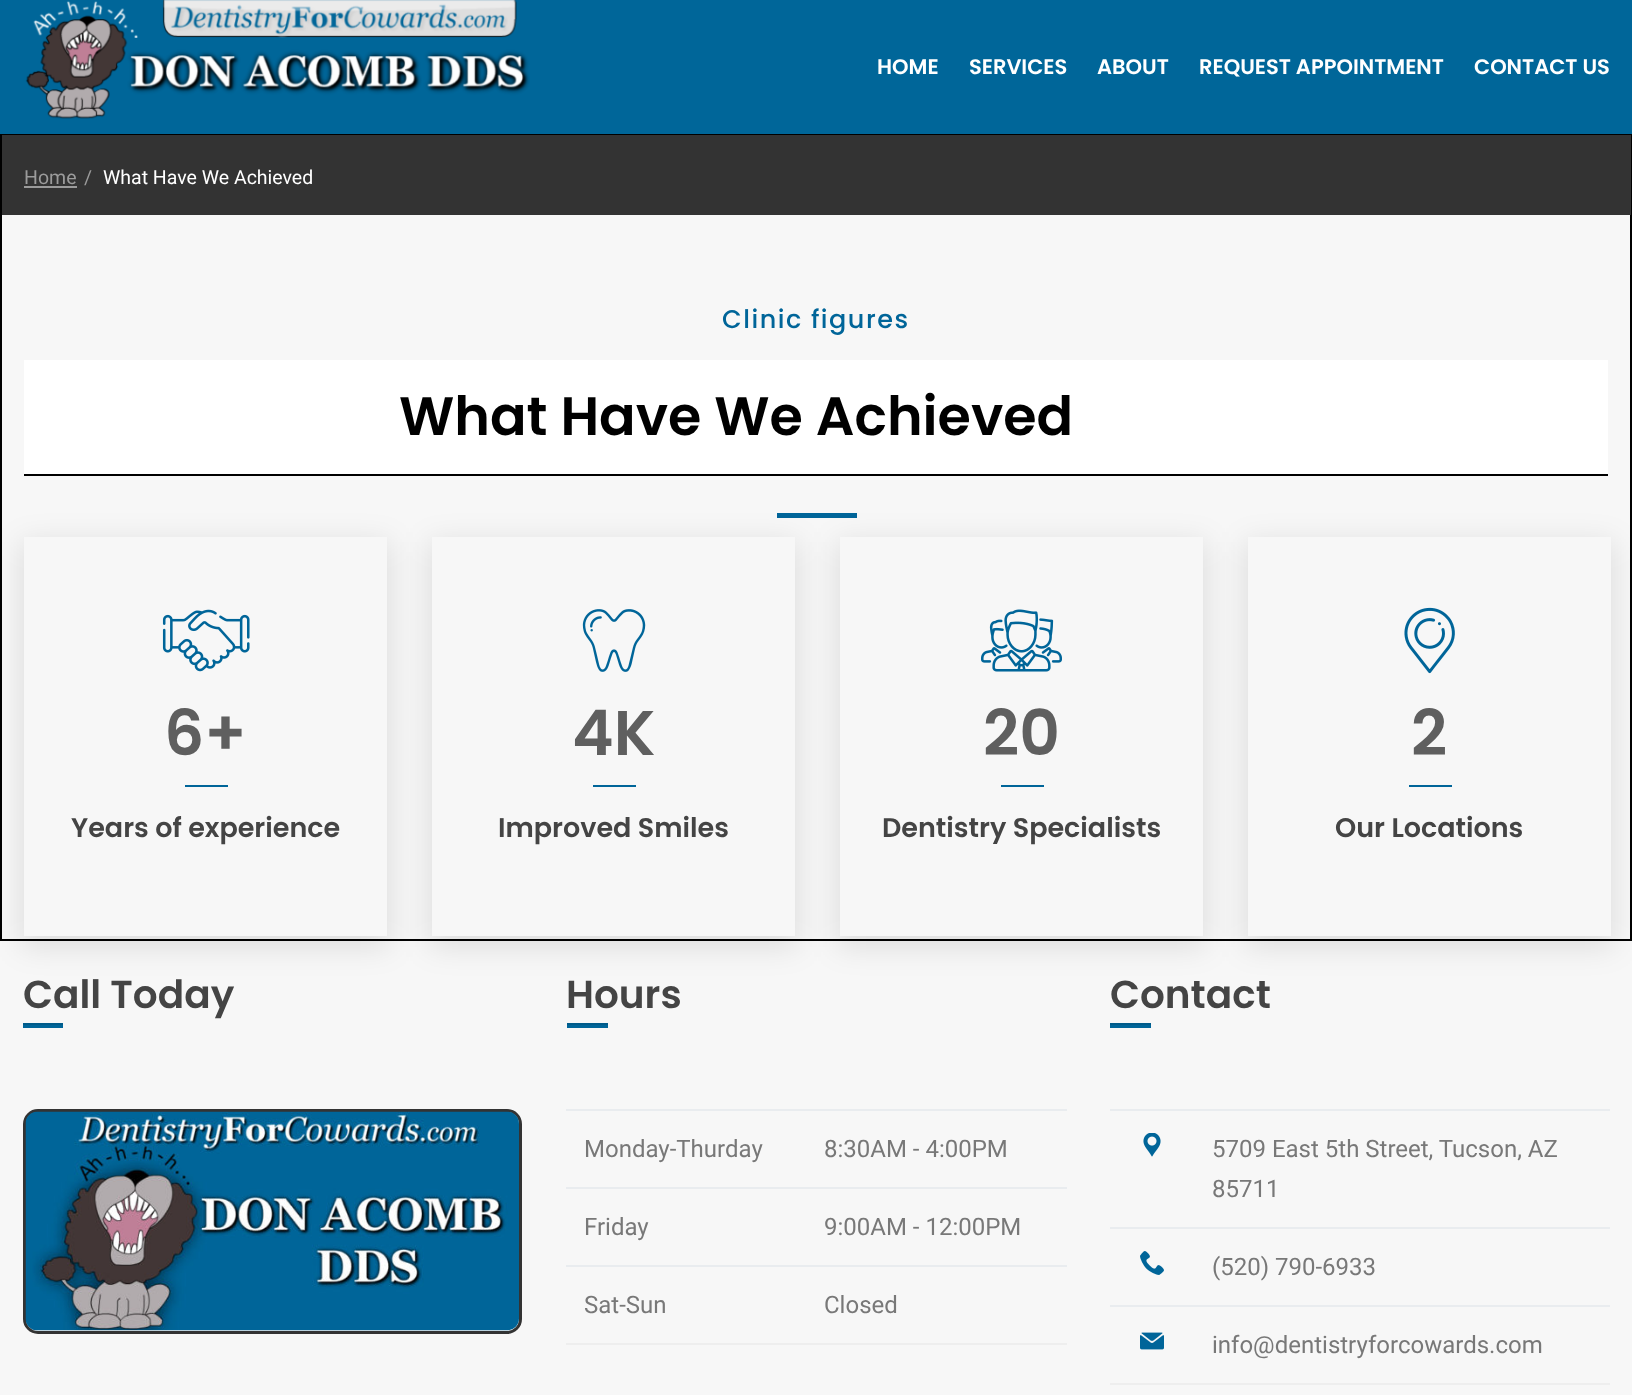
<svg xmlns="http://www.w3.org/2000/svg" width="1632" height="1395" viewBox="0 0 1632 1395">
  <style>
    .t1 { font: 600 21px Poppins; fill: #fff; }
    .t2 { font: 19.5px Roboto; fill: #9b9b9b; }
    .t3 { font: 19.5px Roboto; fill: #fff; }
    .t4 { font: 500 25.5px Poppins; letter-spacing: 1.5px; fill: #006599; }
    .t5 { font: 600 54px Poppins; fill: #000; }
    .t6 { font: 600 63px Poppins; fill: #5f5f5f; }
    .t7 { font: 600 27px Poppins; fill: #444; }
    .t8 { font: 600 39px Poppins; fill: #444; }
    .t9 { font: 24px Roboto; fill: #787878; }
  </style>
  <defs>
    <clipPath id="clip1"><path d="M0 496H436V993H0ZM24 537H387V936H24Z" clip-rule="evenodd"/></clipPath>
    <clipPath id="clip2"><path d="M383 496H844V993H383ZM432 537H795V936H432Z" clip-rule="evenodd"/></clipPath>
    <clipPath id="clip3"><path d="M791 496H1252V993H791ZM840 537H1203V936H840Z" clip-rule="evenodd"/></clipPath>
    <clipPath id="clip4"><path d="M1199 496H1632V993H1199ZM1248 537H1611V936H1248Z" clip-rule="evenodd"/></clipPath>
  </defs>
  <rect width="100%" height="100%" fill="#f7f7f7"/>
  <rect x="0" y="0" width="1632" height="134" fill="#069"/>
  <image x="25" y="0" width="505" height="119" href="images/1.png"/>
  <text x="877" y="74" class="t1">HOME</text>
  <text x="969" y="74" class="t1">SERVICES</text>
  <text x="1097" y="74" class="t1">ABOUT</text>
  <text x="1199" y="74" class="t1">REQUEST APPOINTMENT</text>
  <text x="1474" y="74" class="t1">CONTACT US</text>
  <rect x="1" y="135" width="1630" height="805" fill="none" stroke="#000" stroke-width="2"/>
  <rect x="2" y="135" width="1629" height="80" fill="#333"/>
  <text x="24" y="184" class="t2">Home</text>
  <rect x="24" y="186" width="53" height="2" fill="#9b9b9b"/>
  <text x="84" y="184" class="t2">/</text>
  <text x="103" y="184" class="t3">What Have We Achieved</text>
  <text x="722" y="328" class="t4">Clinic figures</text>
  <rect x="24" y="360" width="1584" height="114" fill="#fff"/>
  <rect x="24" y="474" width="1584" height="2" fill="#000"/>
  <text x="399" y="435" class="t5">What Have We Achieved</text>
  <rect x="777" y="513" width="80" height="5" fill="#006599"/>
  <g clip-path="url(#clip1)">
    <rect x="21" y="542" width="369" height="405" fill="#0000001a" filter="blur(15px)"/>
  </g>
  <image x="162" y="609" width="88" height="63" href="images/2.png"/>
  <text x="164" y="755" class="t6">6+</text>
  <rect x="185" y="785" width="43" height="2" fill="#006599"/>
  <text x="71" y="837" class="t7">Years of experience</text>
  <g clip-path="url(#clip2)">
    <rect x="429" y="542" width="369" height="405" fill="#0000001a" filter="blur(15px)"/>
  </g>
  <image x="582" y="609" width="64" height="63" href="images/3.png"/>
  <text x="572" y="755" class="t6">4K</text>
  <rect x="593" y="785" width="43" height="2" fill="#006599"/>
  <text x="498" y="837" class="t7">Improved Smiles</text>
  <g clip-path="url(#clip3)">
    <rect x="837" y="542" width="369" height="405" fill="#0000001a" filter="blur(15px)"/>
  </g>
  <image x="981" y="609" width="81" height="63" href="images/4.png"/>
  <text x="983" y="755" class="t6">20</text>
  <rect x="1001" y="785" width="43" height="2" fill="#006599"/>
  <text x="882" y="837" class="t7">Dentistry Specialists</text>
  <g clip-path="url(#clip4)">
    <rect x="1245" y="542" width="369" height="405" fill="#0000001a" filter="blur(15px)"/>
  </g>
  <image x="1404" y="607" width="51" height="67" href="images/5.png"/>
  <text x="1411" y="755" class="t6">2</text>
  <rect x="1409" y="785" width="43" height="2" fill="#006599"/>
  <text x="1335" y="837" class="t7">Our Locations</text>
  <text x="23" y="1008" class="t8">Call Today</text>
  <rect x="23" y="1025" width="40" height="3" fill="#006599"/>
  <rect x="23" y="1023" width="40" height="2" fill="#005b8a"/>
  <rect x="24.5" y="1110.5" width="496" height="222" rx="13.5" fill="none" stroke="#333" stroke-width="3"/>
  <image x="25" y="1111" width="494" height="220" href="images/6.png"/>
  <text x="566" y="1008" class="t8">Hours</text>
  <rect x="567" y="1025" width="41" height="3" fill="#006599"/>
  <rect x="567" y="1023" width="41" height="2" fill="#005b8a"/>
  <text x="584" y="1157" class="t9">Monday-Thurday</text>
  <rect x="566" y="1109" width="501" height="2" fill="#e9ecef"/>
  <text x="824" y="1157" class="t9">8:30AM - 4:00PM</text>
  <text x="584" y="1235" class="t9">Friday</text>
  <rect x="566" y="1187" width="501" height="2" fill="#e9ecef"/>
  <text x="824" y="1235" class="t9">9:00AM - 12:00PM</text>
  <rect x="566" y="1343" width="501" height="2" fill="#eee"/>
  <text x="584" y="1313" class="t9">Sat-Sun</text>
  <rect x="566" y="1265" width="501" height="2" fill="#e9ecef"/>
  <text x="824" y="1313" class="t9">Closed</text>
  <text x="1110" y="1008" class="t8">Contact</text>
  <rect x="1110" y="1025" width="41" height="3" fill="#006599"/>
  <rect x="1110" y="1023" width="41" height="2" fill="#005b8a"/>
  <image x="1143" y="1133" width="18" height="24" href="images/7.png"/>
  <rect x="1110" y="1109" width="500" height="2" fill="#e9ecef"/>
  <text x="1212" y="1157" class="t9">5709 East 5th Street, Tucson, AZ</text>
  <text x="1212" y="1197" class="t9">85711</text>
  <image x="1140" y="1251" width="24" height="24" href="images/8.png"/>
  <rect x="1110" y="1227" width="500" height="2" fill="#e9ecef"/>
  <text x="1212" y="1275" class="t9">(520) 790-6933</text>
  <rect x="1110" y="1383" width="500" height="2" fill="#eee"/>
  <image x="1140" y="1332" width="24" height="18" href="images/9.png"/>
  <rect x="1110" y="1305" width="500" height="2" fill="#e9ecef"/>
  <text x="1212" y="1353" class="t9">info@dentistryforcowards.com</text>
</svg>
